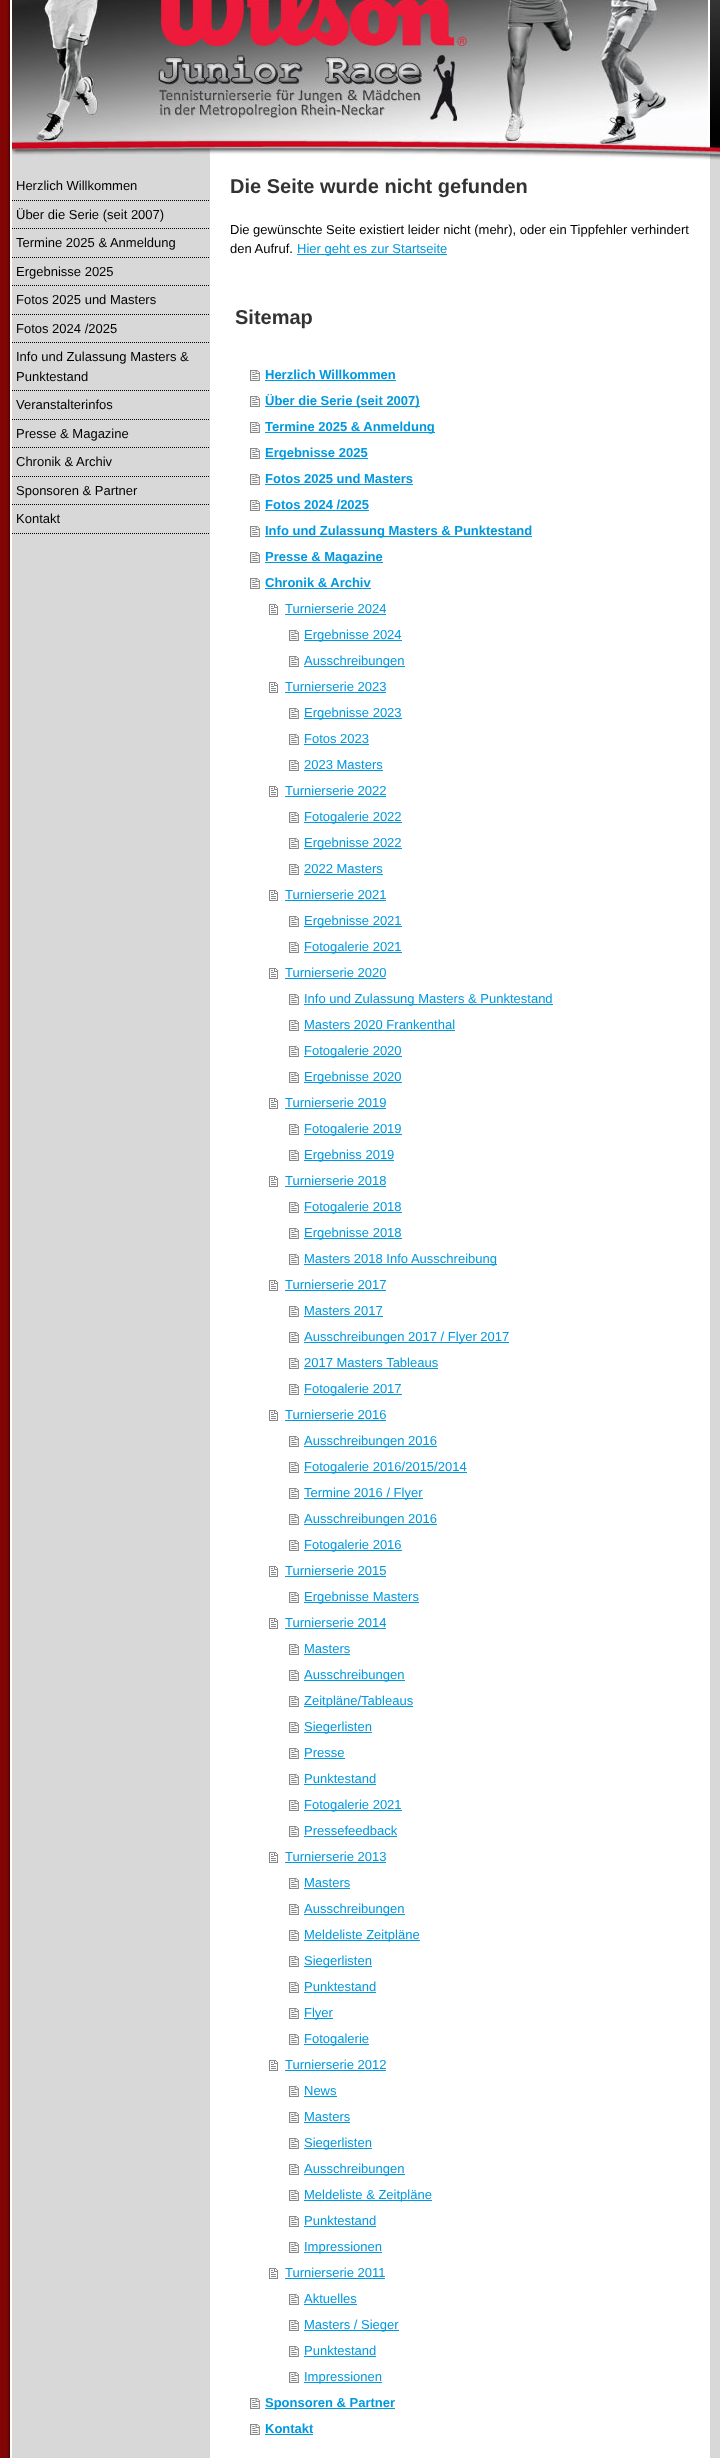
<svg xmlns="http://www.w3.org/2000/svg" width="720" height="2458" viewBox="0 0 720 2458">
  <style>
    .t1 { font: 13px Liberation Sans; fill: #000; }
    .t2 { font: bold 20px Liberation Sans; fill: #333; }
    .t3 { font: 13px Liberation Sans; fill: #0099e1; }
    .t4 { font: bold 13px Liberation Sans; fill: #0099e1; }
  </style>
  <rect width="100%" height="100%" fill="#810505"/>
  <image x="7" y="0" width="713" height="2458" href="images/1.png"/>
  <image x="12" y="0" width="708" height="160" href="images/2.png"/>
  <path d="M12 200.5H210" fill="none" stroke="#000" stroke-dasharray="1 1"/>
  <text x="16" y="190" class="t1">Herzlich Willkommen</text>
  <path d="M12 228.5H210" fill="none" stroke="#000" stroke-dasharray="1 1"/>
  <text x="16" y="219" class="t1">Über die Serie (seit 2007)</text>
  <path d="M12 257.5H210" fill="none" stroke="#000" stroke-dasharray="1 1"/>
  <text x="16" y="247" class="t1">Termine 2025 &amp; Anmeldung</text>
  <path d="M12 285.5H210" fill="none" stroke="#000" stroke-dasharray="1 1"/>
  <text x="16" y="276" class="t1">Ergebnisse 2025</text>
  <path d="M12 314.5H210" fill="none" stroke="#000" stroke-dasharray="1 1"/>
  <text x="16" y="304" class="t1">Fotos 2025 und Masters</text>
  <path d="M12 342.5H210" fill="none" stroke="#000" stroke-dasharray="1 1"/>
  <text x="16" y="333" class="t1">Fotos 2024 /2025</text>
  <path d="M12 390.5H210" fill="none" stroke="#000" stroke-dasharray="1 1"/>
  <text x="16" y="361" class="t1">Info und Zulassung Masters &amp;</text>
  <text x="16" y="381" class="t1">Punktestand</text>
  <path d="M12 419.5H210" fill="none" stroke="#000" stroke-dasharray="1 1"/>
  <text x="16" y="409" class="t1">Veranstalterinfos</text>
  <path d="M12 447.5H210" fill="none" stroke="#000" stroke-dasharray="1 1"/>
  <text x="16" y="438" class="t1">Presse &amp; Magazine</text>
  <path d="M12 476.5H210" fill="none" stroke="#000" stroke-dasharray="1 1"/>
  <text x="16" y="466" class="t1">Chronik &amp; Archiv</text>
  <path d="M12 504.5H210" fill="none" stroke="#000" stroke-dasharray="1 1"/>
  <text x="16" y="495" class="t1">Sponsoren &amp; Partner</text>
  <path d="M12 533.5H210" fill="none" stroke="#000" stroke-dasharray="1 1"/>
  <text x="16" y="523" class="t1">Kontakt</text>
  <text x="230" y="193" class="t2">Die Seite wurde nicht gefunden</text>
  <text x="230" y="234" class="t1">Die gewünschte Seite existiert leider nicht (mehr), oder ein Tippfehler verhindert</text>
  <text x="230" y="253" class="t1">den Aufruf.</text>
  <rect x="297" y="254" width="150" height="1" fill="#0099e1"/>
  <text x="297" y="253" class="t3">Hier geht es zur Startseite</text>
  <text x="235" y="324" class="t2">Sitemap</text>
  <image x="250" y="370" width="10" height="11" href="images/3.png"/>
  <text x="265" y="379" class="t4">Herzlich Willkommen</text>
  <rect x="265" y="380" width="131" height="1" fill="#0099e1"/>
  <image x="250" y="396" width="10" height="11" href="images/3.png"/>
  <rect x="265" y="406" width="155" height="1" fill="#0099e1"/>
  <text x="265" y="405" class="t4">Über die Serie (seit 2007)</text>
  <image x="250" y="422" width="10" height="11" href="images/3.png"/>
  <rect x="265" y="432" width="170" height="1" fill="#0099e1"/>
  <text x="265" y="431" class="t4">Termine 2025 &amp; Anmeldung</text>
  <image x="250" y="448" width="10" height="11" href="images/3.png"/>
  <rect x="265" y="458" width="103" height="1" fill="#0099e1"/>
  <text x="265" y="457" class="t4">Ergebnisse 2025</text>
  <image x="250" y="474" width="10" height="11" href="images/3.png"/>
  <text x="265" y="483" class="t4">Fotos 2025 und Masters</text>
  <rect x="265" y="484" width="148" height="1" fill="#0099e1"/>
  <image x="250" y="500" width="10" height="11" href="images/3.png"/>
  <text x="265" y="509" class="t4">Fotos 2024 /2025</text>
  <rect x="265" y="510" width="104" height="1" fill="#0099e1"/>
  <image x="250" y="526" width="10" height="11" href="images/3.png"/>
  <rect x="265" y="536" width="267" height="1" fill="#0099e1"/>
  <text x="265" y="535" class="t4">Info und Zulassung Masters &amp; Punktestand</text>
  <image x="250" y="552" width="10" height="11" href="images/3.png"/>
  <rect x="265" y="562" width="118" height="1" fill="#0099e1"/>
  <text x="265" y="561" class="t4">Presse &amp; Magazine</text>
  <image x="250" y="578" width="10" height="11" href="images/3.png"/>
  <text x="265" y="587" class="t4">Chronik &amp; Archiv</text>
  <rect x="265" y="588" width="106" height="1" fill="#0099e1"/>
  <image x="269" y="604" width="9" height="11" href="images/4.png"/>
  <text x="285" y="613" class="t3">Turnierserie 2024</text>
  <rect x="285" y="614" width="101" height="1" fill="#0099e1"/>
  <image x="289" y="630" width="10" height="11" href="images/5.png"/>
  <rect x="304" y="640" width="98" height="1" fill="#0099e1"/>
  <text x="304" y="639" class="t3">Ergebnisse 2024</text>
  <image x="289" y="656" width="10" height="11" href="images/5.png"/>
  <rect x="304" y="666" width="101" height="1" fill="#0099e1"/>
  <text x="304" y="665" class="t3">Ausschreibungen</text>
  <image x="269" y="682" width="9" height="11" href="images/4.png"/>
  <text x="285" y="691" class="t3">Turnierserie 2023</text>
  <rect x="285" y="692" width="101" height="1" fill="#0099e1"/>
  <image x="289" y="708" width="10" height="11" href="images/5.png"/>
  <rect x="304" y="718" width="98" height="1" fill="#0099e1"/>
  <text x="304" y="717" class="t3">Ergebnisse 2023</text>
  <image x="289" y="734" width="10" height="11" href="images/5.png"/>
  <text x="304" y="743" class="t3">Fotos 2023</text>
  <rect x="304" y="744" width="65" height="1" fill="#0099e1"/>
  <image x="289" y="760" width="10" height="11" href="images/5.png"/>
  <text x="304" y="769" class="t3">2023 Masters</text>
  <rect x="304" y="770" width="79" height="1" fill="#0099e1"/>
  <image x="269" y="786" width="9" height="11" href="images/4.png"/>
  <text x="285" y="795" class="t3">Turnierserie 2022</text>
  <rect x="285" y="796" width="101" height="1" fill="#0099e1"/>
  <image x="289" y="812" width="10" height="11" href="images/5.png"/>
  <rect x="304" y="822" width="98" height="1" fill="#0099e1"/>
  <text x="304" y="821" class="t3">Fotogalerie 2022</text>
  <image x="289" y="838" width="10" height="11" href="images/5.png"/>
  <rect x="304" y="848" width="98" height="1" fill="#0099e1"/>
  <text x="304" y="847" class="t3">Ergebnisse 2022</text>
  <image x="289" y="864" width="10" height="11" href="images/5.png"/>
  <text x="304" y="873" class="t3">2022 Masters</text>
  <rect x="304" y="874" width="79" height="1" fill="#0099e1"/>
  <image x="269" y="890" width="9" height="11" href="images/4.png"/>
  <text x="285" y="899" class="t3">Turnierserie 2021</text>
  <rect x="285" y="900" width="101" height="1" fill="#0099e1"/>
  <image x="289" y="916" width="10" height="11" href="images/5.png"/>
  <rect x="304" y="926" width="98" height="1" fill="#0099e1"/>
  <text x="304" y="925" class="t3">Ergebnisse 2021</text>
  <image x="289" y="942" width="10" height="11" href="images/5.png"/>
  <rect x="304" y="952" width="98" height="1" fill="#0099e1"/>
  <text x="304" y="951" class="t3">Fotogalerie 2021</text>
  <image x="269" y="968" width="9" height="11" href="images/4.png"/>
  <text x="285" y="977" class="t3">Turnierserie 2020</text>
  <rect x="285" y="978" width="101" height="1" fill="#0099e1"/>
  <image x="289" y="994" width="10" height="11" href="images/5.png"/>
  <rect x="304" y="1004" width="249" height="1" fill="#0099e1"/>
  <text x="304" y="1003" class="t3">Info und Zulassung Masters &amp; Punktestand</text>
  <image x="289" y="1020" width="10" height="11" href="images/5.png"/>
  <text x="304" y="1029" class="t3">Masters 2020 Frankenthal</text>
  <rect x="304" y="1030" width="151" height="1" fill="#0099e1"/>
  <image x="289" y="1046" width="10" height="11" href="images/5.png"/>
  <rect x="304" y="1056" width="98" height="1" fill="#0099e1"/>
  <text x="304" y="1055" class="t3">Fotogalerie 2020</text>
  <image x="289" y="1072" width="10" height="11" href="images/5.png"/>
  <rect x="304" y="1082" width="98" height="1" fill="#0099e1"/>
  <text x="304" y="1081" class="t3">Ergebnisse 2020</text>
  <image x="269" y="1098" width="9" height="11" href="images/4.png"/>
  <text x="285" y="1107" class="t3">Turnierserie 2019</text>
  <rect x="285" y="1108" width="101" height="1" fill="#0099e1"/>
  <image x="289" y="1124" width="10" height="11" href="images/5.png"/>
  <rect x="304" y="1134" width="98" height="1" fill="#0099e1"/>
  <text x="304" y="1133" class="t3">Fotogalerie 2019</text>
  <image x="289" y="1150" width="10" height="11" href="images/5.png"/>
  <rect x="304" y="1160" width="90" height="1" fill="#0099e1"/>
  <text x="304" y="1159" class="t3">Ergebniss 2019</text>
  <image x="269" y="1176" width="9" height="11" href="images/4.png"/>
  <text x="285" y="1185" class="t3">Turnierserie 2018</text>
  <rect x="285" y="1186" width="101" height="1" fill="#0099e1"/>
  <image x="289" y="1202" width="10" height="11" href="images/5.png"/>
  <rect x="304" y="1212" width="98" height="1" fill="#0099e1"/>
  <text x="304" y="1211" class="t3">Fotogalerie 2018</text>
  <image x="289" y="1228" width="10" height="11" href="images/5.png"/>
  <rect x="304" y="1238" width="98" height="1" fill="#0099e1"/>
  <text x="304" y="1237" class="t3">Ergebnisse 2018</text>
  <image x="289" y="1254" width="10" height="11" href="images/5.png"/>
  <rect x="304" y="1264" width="193" height="1" fill="#0099e1"/>
  <text x="304" y="1263" class="t3">Masters 2018 Info Ausschreibung</text>
  <image x="269" y="1280" width="9" height="11" href="images/4.png"/>
  <text x="285" y="1289" class="t3">Turnierserie 2017</text>
  <rect x="285" y="1290" width="101" height="1" fill="#0099e1"/>
  <image x="289" y="1306" width="10" height="11" href="images/5.png"/>
  <text x="304" y="1315" class="t3">Masters 2017</text>
  <rect x="304" y="1316" width="79" height="1" fill="#0099e1"/>
  <image x="289" y="1332" width="10" height="11" href="images/5.png"/>
  <rect x="304" y="1342" width="205" height="1" fill="#0099e1"/>
  <text x="304" y="1341" class="t3">Ausschreibungen 2017 / Flyer 2017</text>
  <image x="289" y="1358" width="10" height="11" href="images/5.png"/>
  <text x="304" y="1367" class="t3">2017 Masters Tableaus</text>
  <rect x="304" y="1368" width="134" height="1" fill="#0099e1"/>
  <image x="289" y="1384" width="10" height="11" href="images/5.png"/>
  <rect x="304" y="1394" width="98" height="1" fill="#0099e1"/>
  <text x="304" y="1393" class="t3">Fotogalerie 2017</text>
  <image x="269" y="1410" width="9" height="11" href="images/4.png"/>
  <text x="285" y="1419" class="t3">Turnierserie 2016</text>
  <rect x="285" y="1420" width="101" height="1" fill="#0099e1"/>
  <image x="289" y="1436" width="10" height="11" href="images/5.png"/>
  <rect x="304" y="1446" width="133" height="1" fill="#0099e1"/>
  <text x="304" y="1445" class="t3">Ausschreibungen 2016</text>
  <image x="289" y="1462" width="10" height="11" href="images/5.png"/>
  <rect x="304" y="1472" width="163" height="1" fill="#0099e1"/>
  <text x="304" y="1471" class="t3">Fotogalerie 2016/2015/2014</text>
  <image x="289" y="1488" width="10" height="11" href="images/5.png"/>
  <rect x="304" y="1498" width="119" height="1" fill="#0099e1"/>
  <text x="304" y="1497" class="t3">Termine 2016 / Flyer</text>
  <image x="289" y="1514" width="10" height="11" href="images/5.png"/>
  <rect x="304" y="1524" width="133" height="1" fill="#0099e1"/>
  <text x="304" y="1523" class="t3">Ausschreibungen 2016</text>
  <image x="289" y="1540" width="10" height="11" href="images/5.png"/>
  <rect x="304" y="1550" width="98" height="1" fill="#0099e1"/>
  <text x="304" y="1549" class="t3">Fotogalerie 2016</text>
  <image x="269" y="1566" width="9" height="11" href="images/4.png"/>
  <text x="285" y="1575" class="t3">Turnierserie 2015</text>
  <rect x="285" y="1576" width="101" height="1" fill="#0099e1"/>
  <image x="289" y="1592" width="10" height="11" href="images/5.png"/>
  <rect x="304" y="1602" width="115" height="1" fill="#0099e1"/>
  <text x="304" y="1601" class="t3">Ergebnisse Masters</text>
  <image x="269" y="1618" width="9" height="11" href="images/4.png"/>
  <text x="285" y="1627" class="t3">Turnierserie 2014</text>
  <rect x="285" y="1628" width="101" height="1" fill="#0099e1"/>
  <image x="289" y="1644" width="10" height="11" href="images/5.png"/>
  <text x="304" y="1653" class="t3">Masters</text>
  <rect x="304" y="1654" width="46" height="1" fill="#0099e1"/>
  <image x="289" y="1670" width="10" height="11" href="images/5.png"/>
  <rect x="304" y="1680" width="101" height="1" fill="#0099e1"/>
  <text x="304" y="1679" class="t3">Ausschreibungen</text>
  <image x="289" y="1696" width="10" height="11" href="images/5.png"/>
  <rect x="304" y="1706" width="109" height="1" fill="#0099e1"/>
  <text x="304" y="1705" class="t3">Zeitpläne/Tableaus</text>
  <image x="289" y="1722" width="10" height="11" href="images/5.png"/>
  <rect x="304" y="1732" width="68" height="1" fill="#0099e1"/>
  <text x="304" y="1731" class="t3">Siegerlisten</text>
  <image x="289" y="1748" width="10" height="11" href="images/5.png"/>
  <text x="304" y="1757" class="t3">Presse</text>
  <rect x="304" y="1758" width="41" height="1" fill="#0099e1"/>
  <image x="289" y="1774" width="10" height="11" href="images/5.png"/>
  <text x="304" y="1783" class="t3">Punktestand</text>
  <rect x="304" y="1784" width="72" height="1" fill="#0099e1"/>
  <image x="289" y="1800" width="10" height="11" href="images/5.png"/>
  <rect x="304" y="1810" width="98" height="1" fill="#0099e1"/>
  <text x="304" y="1809" class="t3">Fotogalerie 2021</text>
  <image x="289" y="1826" width="10" height="11" href="images/5.png"/>
  <text x="304" y="1835" class="t3">Pressefeedback</text>
  <rect x="304" y="1836" width="93" height="1" fill="#0099e1"/>
  <image x="269" y="1852" width="9" height="11" href="images/4.png"/>
  <text x="285" y="1861" class="t3">Turnierserie 2013</text>
  <rect x="285" y="1862" width="101" height="1" fill="#0099e1"/>
  <image x="289" y="1878" width="10" height="11" href="images/5.png"/>
  <text x="304" y="1887" class="t3">Masters</text>
  <rect x="304" y="1888" width="46" height="1" fill="#0099e1"/>
  <image x="289" y="1904" width="10" height="11" href="images/5.png"/>
  <rect x="304" y="1914" width="101" height="1" fill="#0099e1"/>
  <text x="304" y="1913" class="t3">Ausschreibungen</text>
  <image x="289" y="1930" width="10" height="11" href="images/5.png"/>
  <rect x="304" y="1940" width="116" height="1" fill="#0099e1"/>
  <text x="304" y="1939" class="t3">Meldeliste Zeitpläne</text>
  <image x="289" y="1956" width="10" height="11" href="images/5.png"/>
  <rect x="304" y="1966" width="68" height="1" fill="#0099e1"/>
  <text x="304" y="1965" class="t3">Siegerlisten</text>
  <image x="289" y="1982" width="10" height="11" href="images/5.png"/>
  <text x="304" y="1991" class="t3">Punktestand</text>
  <rect x="304" y="1992" width="72" height="1" fill="#0099e1"/>
  <image x="289" y="2008" width="10" height="11" href="images/5.png"/>
  <rect x="304" y="2018" width="29" height="1" fill="#0099e1"/>
  <text x="304" y="2017" class="t3">Flyer</text>
  <image x="289" y="2034" width="10" height="11" href="images/5.png"/>
  <rect x="304" y="2044" width="65" height="1" fill="#0099e1"/>
  <text x="304" y="2043" class="t3">Fotogalerie</text>
  <image x="269" y="2060" width="9" height="11" href="images/4.png"/>
  <text x="285" y="2069" class="t3">Turnierserie 2012</text>
  <rect x="285" y="2070" width="101" height="1" fill="#0099e1"/>
  <image x="289" y="2086" width="10" height="11" href="images/5.png"/>
  <text x="304" y="2095" class="t3">News</text>
  <rect x="304" y="2096" width="33" height="1" fill="#0099e1"/>
  <image x="289" y="2112" width="10" height="11" href="images/5.png"/>
  <text x="304" y="2121" class="t3">Masters</text>
  <rect x="304" y="2122" width="46" height="1" fill="#0099e1"/>
  <image x="289" y="2138" width="10" height="11" href="images/5.png"/>
  <rect x="304" y="2148" width="68" height="1" fill="#0099e1"/>
  <text x="304" y="2147" class="t3">Siegerlisten</text>
  <image x="289" y="2164" width="10" height="11" href="images/5.png"/>
  <rect x="304" y="2174" width="101" height="1" fill="#0099e1"/>
  <text x="304" y="2173" class="t3">Ausschreibungen</text>
  <image x="289" y="2190" width="10" height="11" href="images/5.png"/>
  <rect x="304" y="2200" width="128" height="1" fill="#0099e1"/>
  <text x="304" y="2199" class="t3">Meldeliste &amp; Zeitpläne</text>
  <image x="289" y="2216" width="10" height="11" href="images/5.png"/>
  <text x="304" y="2225" class="t3">Punktestand</text>
  <rect x="304" y="2226" width="72" height="1" fill="#0099e1"/>
  <image x="289" y="2242" width="10" height="11" href="images/5.png"/>
  <rect x="304" y="2252" width="78" height="1" fill="#0099e1"/>
  <text x="304" y="2251" class="t3">Impressionen</text>
  <image x="269" y="2268" width="9" height="11" href="images/4.png"/>
  <text x="285" y="2277" class="t3">Turnierserie 2011</text>
  <rect x="285" y="2278" width="100" height="1" fill="#0099e1"/>
  <image x="289" y="2294" width="10" height="11" href="images/5.png"/>
  <text x="304" y="2303" class="t3">Aktuelles</text>
  <rect x="304" y="2304" width="53" height="1" fill="#0099e1"/>
  <image x="289" y="2320" width="10" height="11" href="images/5.png"/>
  <rect x="304" y="2330" width="95" height="1" fill="#0099e1"/>
  <text x="304" y="2329" class="t3">Masters / Sieger</text>
  <image x="289" y="2346" width="10" height="11" href="images/5.png"/>
  <text x="304" y="2355" class="t3">Punktestand</text>
  <rect x="304" y="2356" width="72" height="1" fill="#0099e1"/>
  <image x="289" y="2372" width="10" height="11" href="images/5.png"/>
  <rect x="304" y="2382" width="78" height="1" fill="#0099e1"/>
  <text x="304" y="2381" class="t3">Impressionen</text>
  <image x="250" y="2398" width="10" height="11" href="images/3.png"/>
  <rect x="265" y="2408" width="130" height="1" fill="#0099e1"/>
  <text x="265" y="2407" class="t4">Sponsoren &amp; Partner</text>
  <image x="250" y="2424" width="10" height="11" href="images/3.png"/>
  <text x="265" y="2433" class="t4">Kontakt</text>
  <rect x="265" y="2434" width="48" height="1" fill="#0099e1"/>
</svg>
